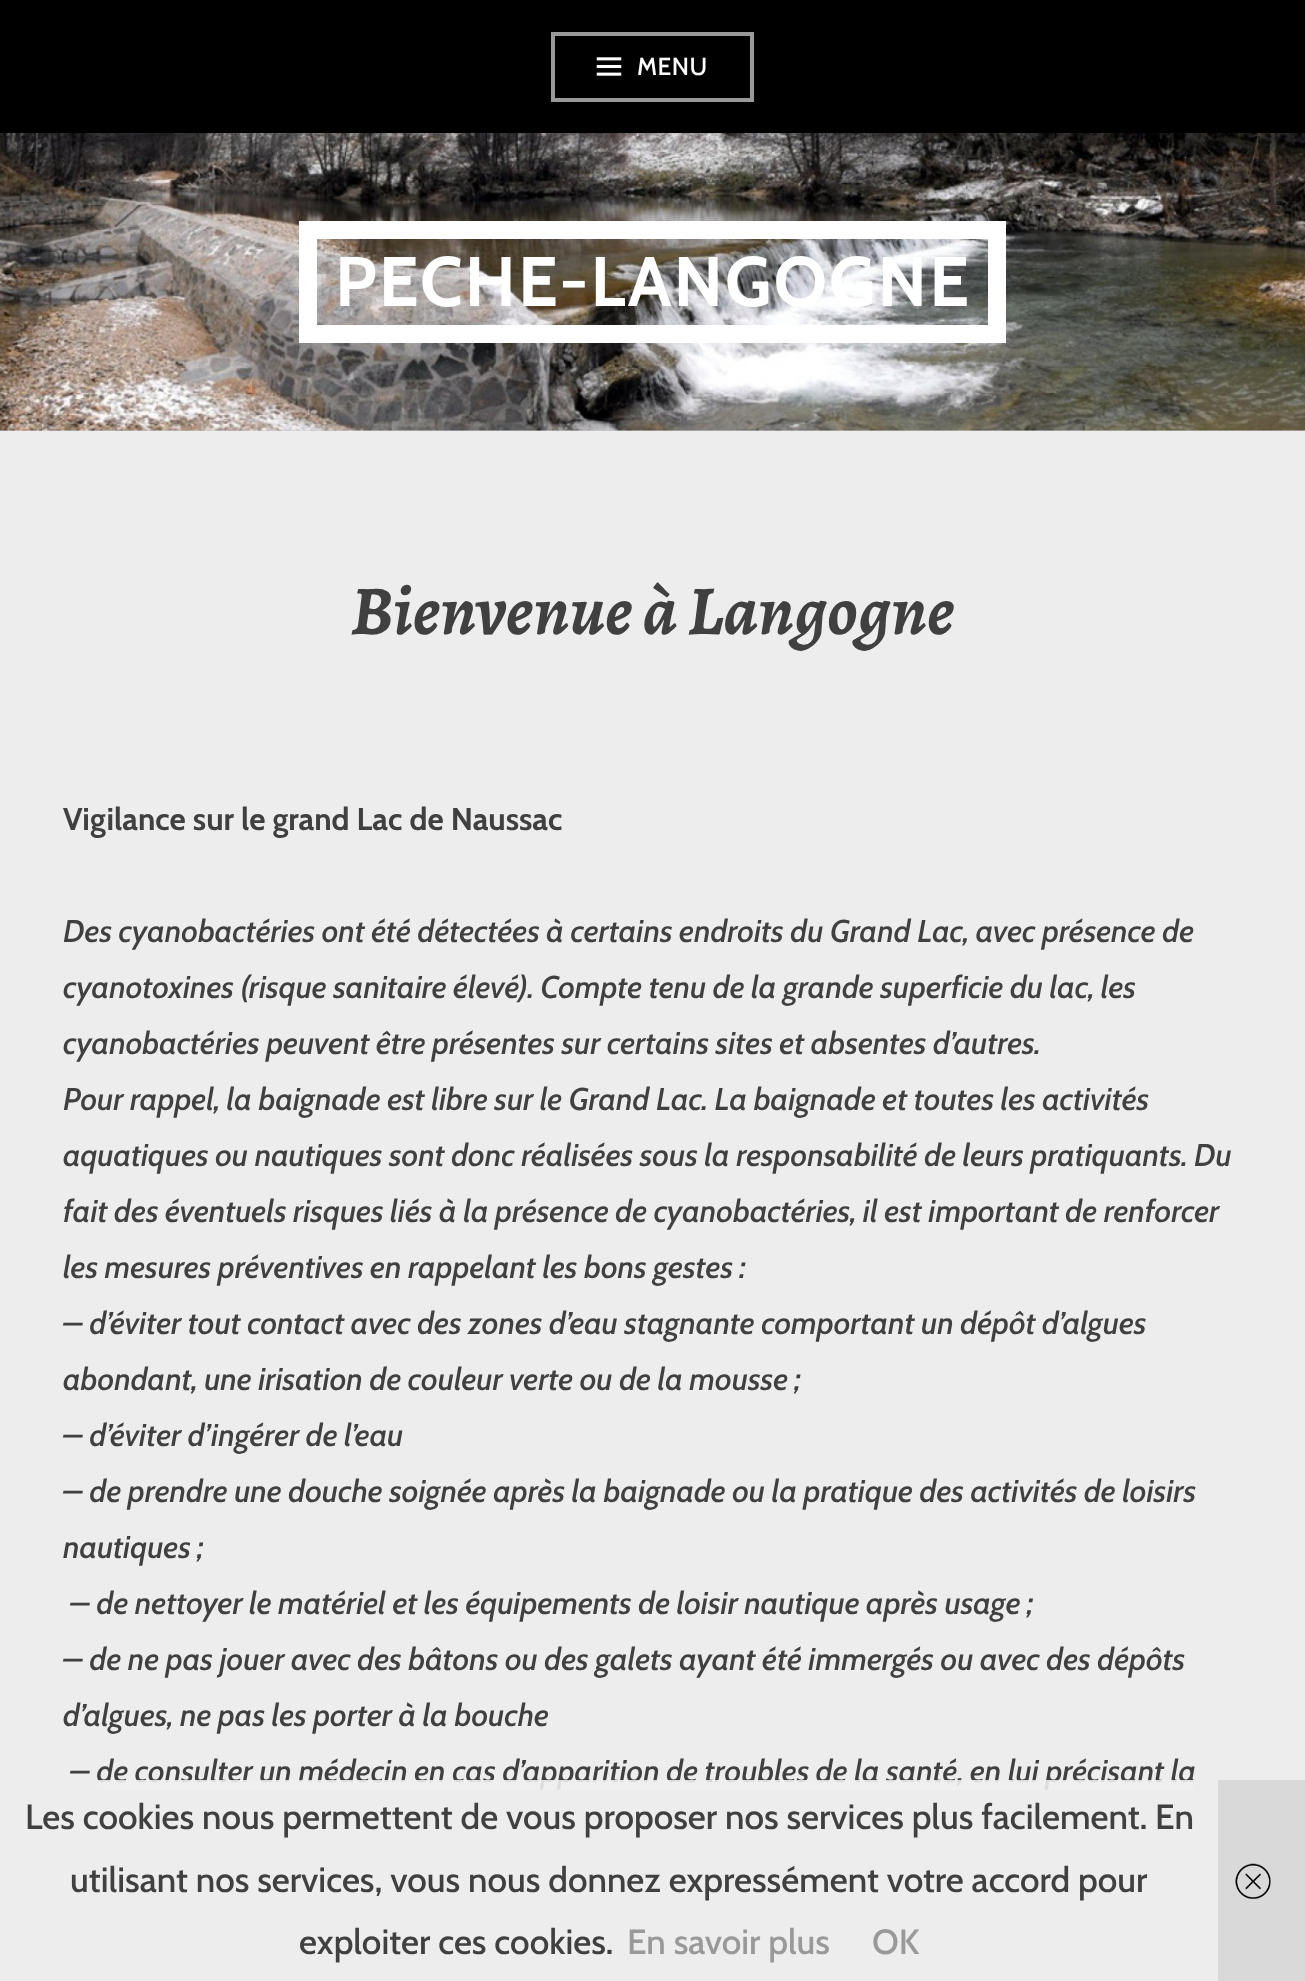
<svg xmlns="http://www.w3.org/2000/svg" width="1305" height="1981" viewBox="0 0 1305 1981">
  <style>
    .t1 { font: 500 24.5px Cabin; letter-spacing: 0.5px; fill: #fff; }
    .t2 { font: bold 70px Cabin; letter-spacing: 2.1px; fill: #fff; }
    .t3 { font: italic bold 70px Alegreya; fill: #404040; }
    .t4 { font: bold 31.5px Cabin; fill: #404040; }
    .t5 { font: italic 500 31.5px Cabin; fill: #404040; }
    .t6 { font: 500 35px Cabin; fill: #404040; }
    .t7 { font: 500 35px Cabin; fill: #999; }
  </style>
  <rect width="100%" height="100%" fill="#ededed"/>
  <rect x="0" y="0" width="1305" height="133" fill="#000"/>
  <rect x="553" y="34" width="199" height="66" fill="none" stroke="#999" stroke-width="4"/>
  <image x="596" y="57" width="26" height="19" href="images/1.png"/>
  <text x="637" y="75" class="t1">MENU</text>
  <rect x="0" y="430" width="1305" height="1" fill="#cacaca"/>
  <image x="0" y="133" width="1305" height="298" href="images/2.png"/>
  <rect x="308" y="230" width="689" height="104" fill="none" stroke="#fff" stroke-width="18"/>
  <text x="335" y="306" class="t2">PECHE-LANGOGNE</text>
  <text x="351" y="634" class="t3">Bienvenue à Langogne</text>
  <text x="63" y="830" class="t4">Vigilance sur le grand Lac de Naussac</text>
  <text x="63" y="942" class="t5">Des cyanobactéries ont été détectées à certains endroits du Grand Lac, avec présence de</text>
  <text x="63" y="998" class="t5">cyanotoxines (risque sanitaire élevé). Compte tenu de la grande superficie du lac, les</text>
  <text x="63" y="1054" class="t5">cyanobactéries peuvent être présentes sur certains sites et absentes d’autres.</text>
  <text x="63" y="1110" class="t5">Pour rappel, la baignade est libre sur le Grand Lac. La baignade et toutes les activités</text>
  <text x="63" y="1166" class="t5">aquatiques ou nautiques sont donc réalisées sous la responsabilité de leurs pratiquants. Du</text>
  <text x="63" y="1222" class="t5">fait des éventuels risques liés à la présence de cyanobactéries, il est important de renforcer</text>
  <text x="63" y="1278" class="t5">les mesures préventives en rappelant les bons gestes :</text>
  <text x="63" y="1334" class="t5">– d’éviter tout contact avec des zones d’eau stagnante comportant un dépôt d’algues</text>
  <text x="63" y="1390" class="t5">abondant, une irisation de couleur verte ou de la mousse ;</text>
  <text x="63" y="1446" class="t5">– d’éviter d’ingérer de l’eau</text>
  <text x="63" y="1502" class="t5">– de prendre une douche soignée après la baignade ou la pratique des activités de loisirs</text>
  <text x="63" y="1558" class="t5">nautiques ;</text>
  <text x="70" y="1614" class="t5">– de nettoyer le matériel et les équipements de loisir nautique après usage ;</text>
  <text x="63" y="1670" class="t5">– de ne pas jouer avec des bâtons ou des galets ayant été immergés ou avec des dépôts</text>
  <text x="63" y="1726" class="t5">d’algues, ne pas les porter à la bouche</text>
  <text x="70" y="1782" class="t5">– de consulter un médecin en cas d’apparition de troubles de la santé, en lui précisant la</text>
  <rect x="97" y="1780" width="1097" height="10" fill="#eeeeeee6"/>
  <text x="25" y="1829" class="t6">Les cookies nous permettent de vous proposer nos services plus facilement. En</text>
  <text x="70" y="1892" class="t6">utilisant nos services, vous nous donnez expressément votre accord pour</text>
  <text x="299" y="1954" class="t6">exploiter ces cookies.</text>
  <text x="627" y="1954" class="t7">En savoir plus</text>
  <text x="872" y="1954" class="t7">OK</text>
  <rect x="1218" y="1780" width="87" height="201" fill="#cccccc99"/>
  <image x="1235" y="1863" width="36" height="36" href="images/3.png"/>
</svg>
